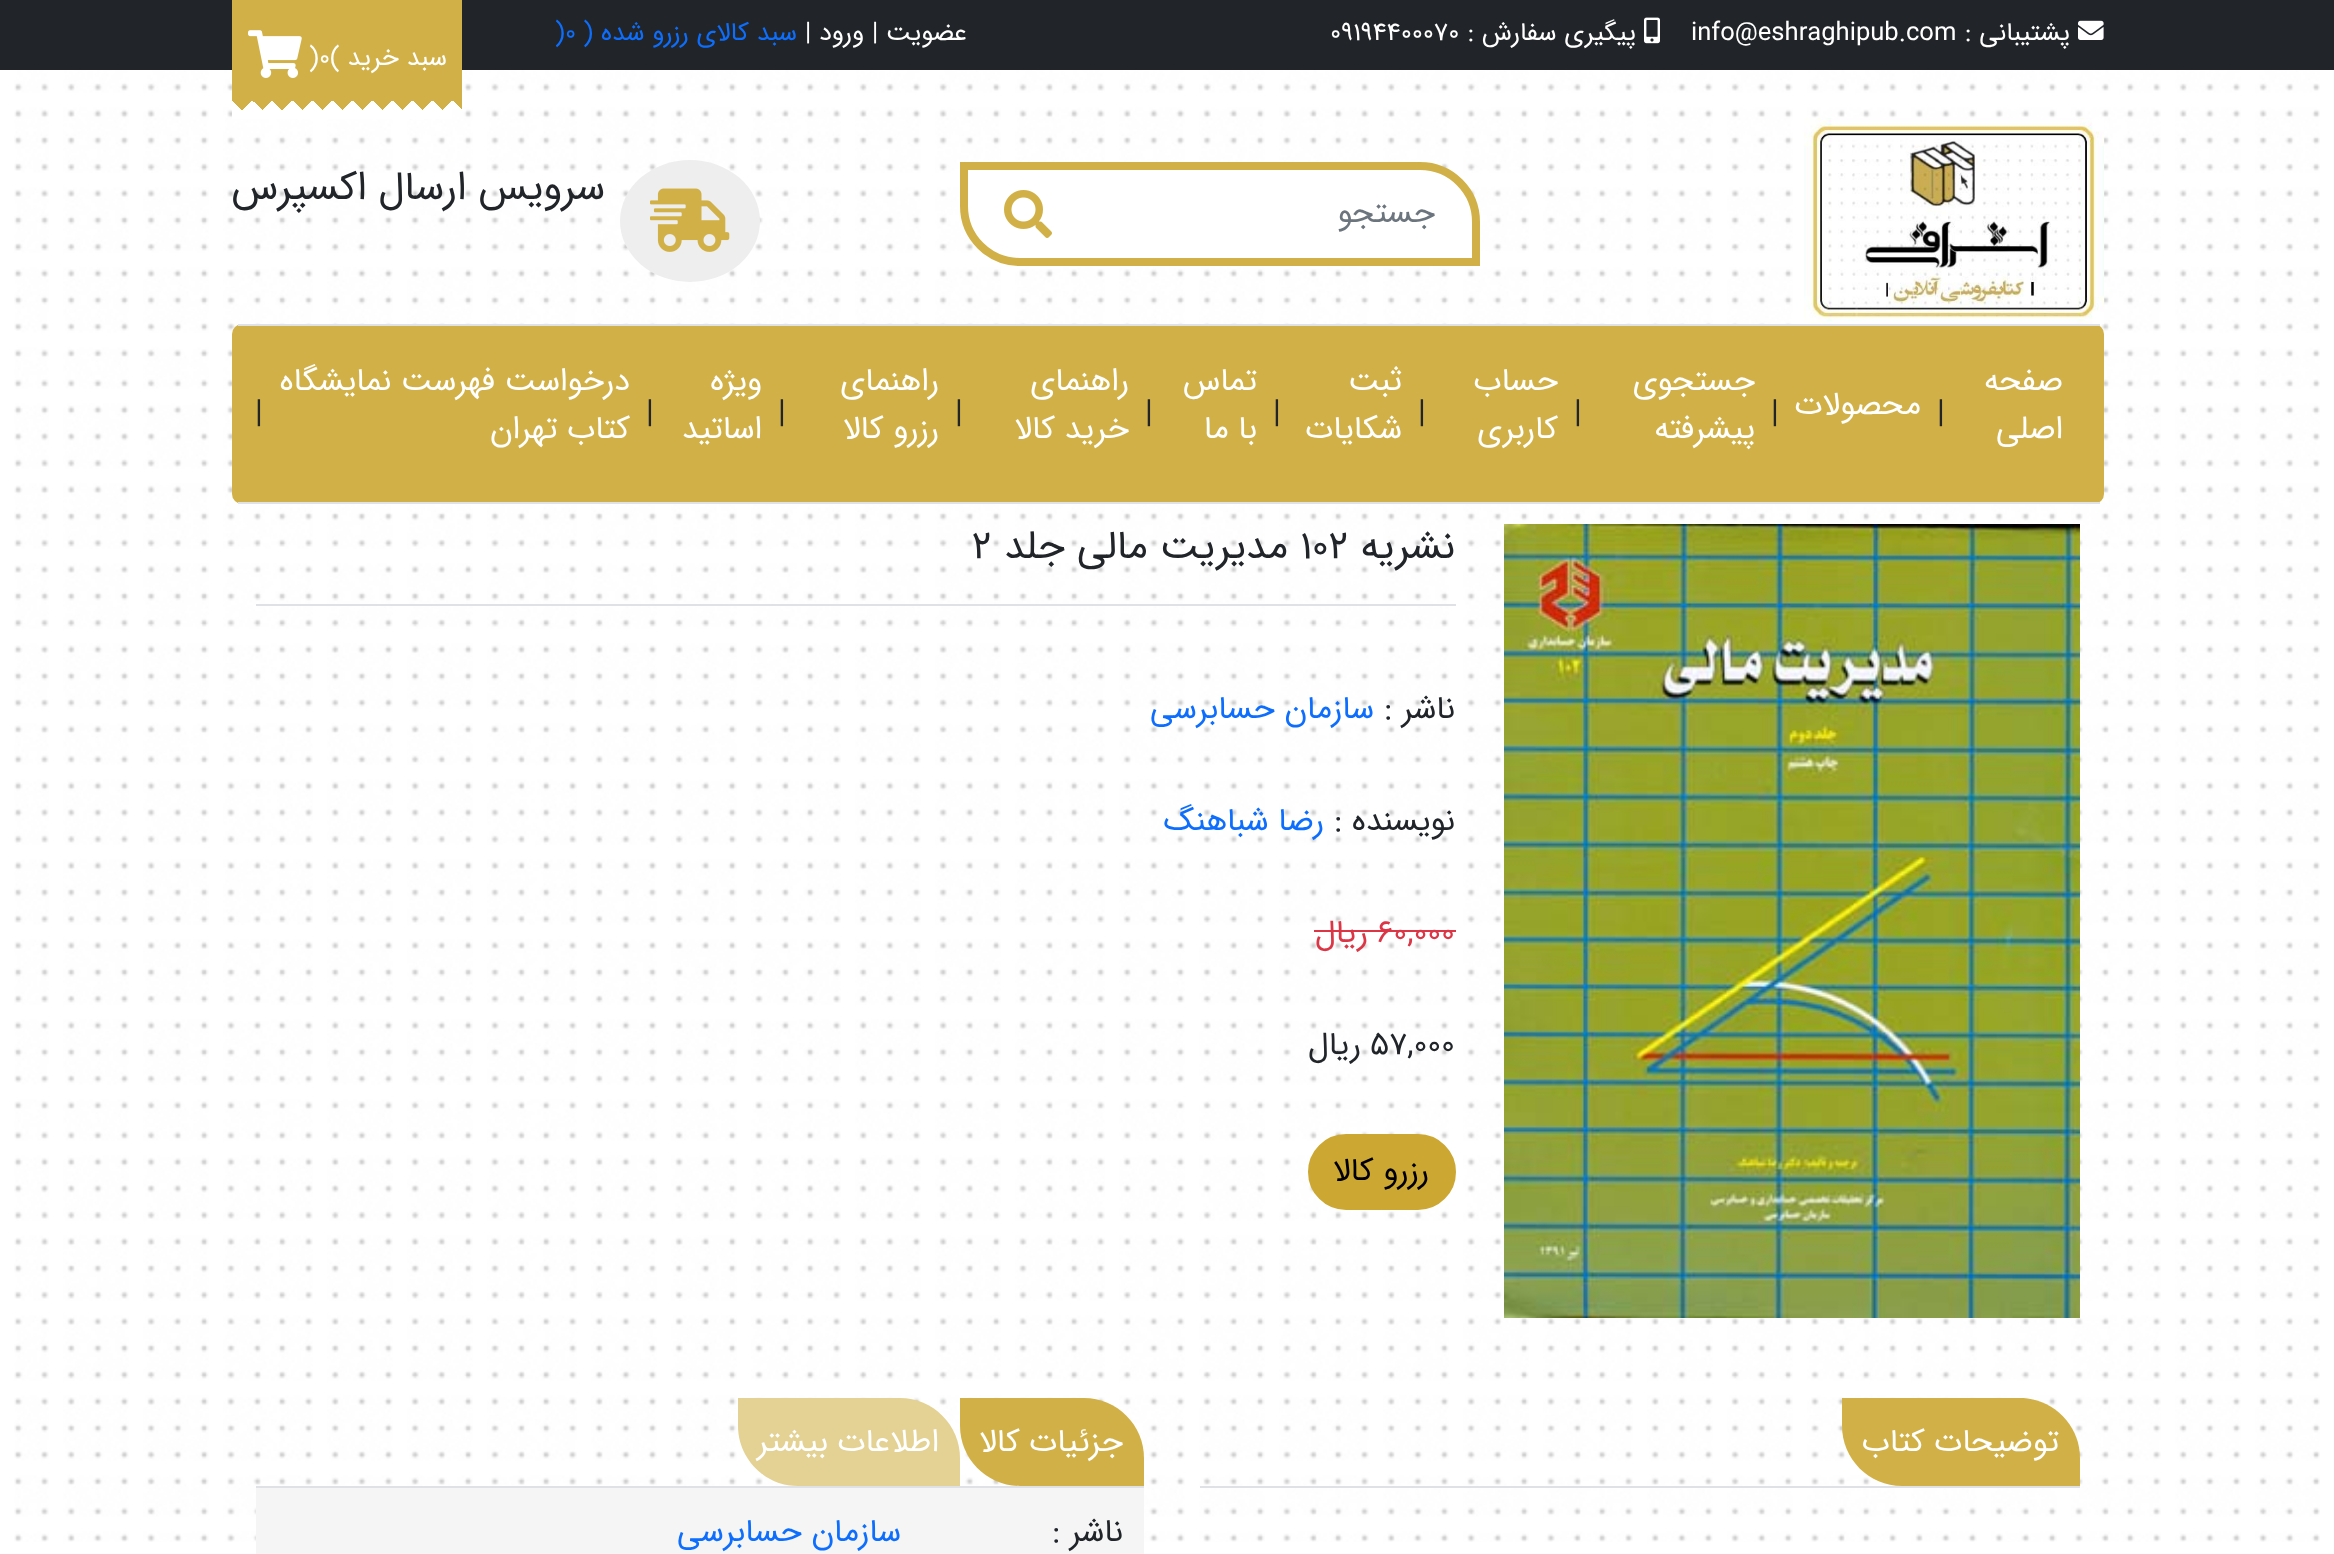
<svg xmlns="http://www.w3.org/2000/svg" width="2334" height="1554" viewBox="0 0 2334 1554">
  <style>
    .t1 { font: 25.6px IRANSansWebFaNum; direction: rtl; fill: #fff; }
    .t2 { font: 25.6px IRANSansWebFaNum; fill: #fff; }
    .t3 { font: 25.6px IRANSansWebFaNum; direction: rtl; fill: #0d6efd; }
    .t4 { font: 25.6px IRANSansWebFaNum; fill: #0d6efd; }
    .t5 { font: 40px IRANSansWebFaNum; direction: rtl; fill: #212529; }
    .t6 { font: 32px IRANSansWebFaNum; direction: rtl; fill: #6c757d; }
    .t7 { font: 32px IRANSansWebFaNum; direction: rtl; fill: #fff; }
    .t8 { font: 32px IRANSansWebFaNum; fill: #212529; }
    .t9 { font: 40px IRANSansWebFaNum; fill: #212529; }
    .t10 { font: 32px IRANSansWebFaNum; direction: rtl; fill: #212529; }
    .t11 { font: 32px IRANSansWebFaNum; direction: rtl; fill: #0d6efd; }
    .t12 { font: 32px IRANSansWebFaNum; fill: #dc3545; }
    .t13 { font: 32px IRANSansWebFaNum; direction: rtl; fill: #dc3545; }
    .t14 { font: 32px IRANSansWebFaNum; direction: rtl; fill: #000; }
  </style>
  <defs>
    <linearGradient id="g1" gradientUnits="userSpaceOnUse" x1="252" y1="120" x2="232" y2="100"><stop offset="0.5" stop-color="#fff"/><stop offset="0.5" stop-color="#d1b147"/></linearGradient>
    <linearGradient id="g2" gradientUnits="userSpaceOnUse" x1="272" y1="120" x2="252" y2="100"><stop offset="0.5" stop-color="#fff"/><stop offset="0.5" stop-color="#d1b147"/></linearGradient>
    <linearGradient id="g3" gradientUnits="userSpaceOnUse" x1="292" y1="120" x2="272" y2="100"><stop offset="0.5" stop-color="#fff"/><stop offset="0.5" stop-color="#d1b147"/></linearGradient>
    <linearGradient id="g4" gradientUnits="userSpaceOnUse" x1="312" y1="120" x2="292" y2="100"><stop offset="0.5" stop-color="#fff"/><stop offset="0.5" stop-color="#d1b147"/></linearGradient>
    <linearGradient id="g5" gradientUnits="userSpaceOnUse" x1="332" y1="120" x2="312" y2="100"><stop offset="0.5" stop-color="#fff"/><stop offset="0.5" stop-color="#d1b147"/></linearGradient>
    <linearGradient id="g6" gradientUnits="userSpaceOnUse" x1="352" y1="120" x2="332" y2="100"><stop offset="0.5" stop-color="#fff"/><stop offset="0.5" stop-color="#d1b147"/></linearGradient>
    <linearGradient id="g7" gradientUnits="userSpaceOnUse" x1="372" y1="120" x2="352" y2="100"><stop offset="0.5" stop-color="#fff"/><stop offset="0.5" stop-color="#d1b147"/></linearGradient>
    <linearGradient id="g8" gradientUnits="userSpaceOnUse" x1="392" y1="120" x2="372" y2="100"><stop offset="0.5" stop-color="#fff"/><stop offset="0.5" stop-color="#d1b147"/></linearGradient>
    <linearGradient id="g9" gradientUnits="userSpaceOnUse" x1="412" y1="120" x2="392" y2="100"><stop offset="0.5" stop-color="#fff"/><stop offset="0.5" stop-color="#d1b147"/></linearGradient>
    <linearGradient id="g10" gradientUnits="userSpaceOnUse" x1="432" y1="120" x2="412" y2="100"><stop offset="0.5" stop-color="#fff"/><stop offset="0.5" stop-color="#d1b147"/></linearGradient>
    <linearGradient id="g11" gradientUnits="userSpaceOnUse" x1="452" y1="120" x2="432" y2="100"><stop offset="0.5" stop-color="#fff"/><stop offset="0.5" stop-color="#d1b147"/></linearGradient>
    <linearGradient id="g12" gradientUnits="userSpaceOnUse" x1="472" y1="120" x2="452" y2="100"><stop offset="0.5" stop-color="#fff"/><stop offset="0.5" stop-color="#d1b147"/></linearGradient>
    <linearGradient id="g13" gradientUnits="userSpaceOnUse" x1="232" y1="120" x2="252" y2="100"><stop offset="0.5" stop-color="#fff"/><stop offset="0.5" stop-color="#fff" stop-opacity="0"/></linearGradient>
    <linearGradient id="g14" gradientUnits="userSpaceOnUse" x1="252" y1="120" x2="272" y2="100"><stop offset="0.5" stop-color="#fff"/><stop offset="0.5" stop-color="#fff" stop-opacity="0"/></linearGradient>
    <linearGradient id="g15" gradientUnits="userSpaceOnUse" x1="272" y1="120" x2="292" y2="100"><stop offset="0.5" stop-color="#fff"/><stop offset="0.5" stop-color="#fff" stop-opacity="0"/></linearGradient>
    <linearGradient id="g16" gradientUnits="userSpaceOnUse" x1="292" y1="120" x2="312" y2="100"><stop offset="0.5" stop-color="#fff"/><stop offset="0.5" stop-color="#fff" stop-opacity="0"/></linearGradient>
    <linearGradient id="g17" gradientUnits="userSpaceOnUse" x1="312" y1="120" x2="332" y2="100"><stop offset="0.5" stop-color="#fff"/><stop offset="0.5" stop-color="#fff" stop-opacity="0"/></linearGradient>
    <linearGradient id="g18" gradientUnits="userSpaceOnUse" x1="332" y1="120" x2="352" y2="100"><stop offset="0.5" stop-color="#fff"/><stop offset="0.5" stop-color="#fff" stop-opacity="0"/></linearGradient>
    <linearGradient id="g19" gradientUnits="userSpaceOnUse" x1="352" y1="120" x2="372" y2="100"><stop offset="0.5" stop-color="#fff"/><stop offset="0.5" stop-color="#fff" stop-opacity="0"/></linearGradient>
    <linearGradient id="g20" gradientUnits="userSpaceOnUse" x1="372" y1="120" x2="392" y2="100"><stop offset="0.5" stop-color="#fff"/><stop offset="0.5" stop-color="#fff" stop-opacity="0"/></linearGradient>
    <linearGradient id="g21" gradientUnits="userSpaceOnUse" x1="392" y1="120" x2="412" y2="100"><stop offset="0.5" stop-color="#fff"/><stop offset="0.5" stop-color="#fff" stop-opacity="0"/></linearGradient>
    <linearGradient id="g22" gradientUnits="userSpaceOnUse" x1="412" y1="120" x2="432" y2="100"><stop offset="0.5" stop-color="#fff"/><stop offset="0.5" stop-color="#fff" stop-opacity="0"/></linearGradient>
    <linearGradient id="g23" gradientUnits="userSpaceOnUse" x1="432" y1="120" x2="452" y2="100"><stop offset="0.5" stop-color="#fff"/><stop offset="0.5" stop-color="#fff" stop-opacity="0"/></linearGradient>
    <linearGradient id="g24" gradientUnits="userSpaceOnUse" x1="452" y1="120" x2="472" y2="100"><stop offset="0.5" stop-color="#fff"/><stop offset="0.5" stop-color="#fff" stop-opacity="0"/></linearGradient>
  </defs>
  <rect width="100%" height="100%" fill="#fff"/>
  <image x="14" y="70" width="2306" height="1472" href="images/1.png"/>
  <rect x="0" y="0" width="2334" height="70" fill="#212529"/>
  <image x="2078" y="20" width="26" height="20" href="images/2.png"/>
  <text x="2070" y="40" class="t1">پشتیبانی :</text>
  <text x="1691" y="40" class="t2">info@eshraghipub.com</text>
  <image x="1644" y="17" width="16" height="27" href="images/3.png"/>
  <text x="1636" y="40" class="t1">پیگیری سفارش :</text>
  <text x="1330" y="40" class="t2">09194400070</text>
  <text x="967" y="40" class="t1">عضویت</text>
  <text x="872" y="40" class="t2">|</text>
  <text x="864" y="40" class="t1">ورود</text>
  <text x="805" y="40" class="t2">|</text>
  <text x="797" y="40" class="t3">سبد کالای رزرو شده (</text>
  <text x="565" y="40" class="t4">0</text>
  <text x="555" y="40" class="t4">)</text>
  <rect x="232" y="0" width="230" height="100" fill="#d1b147"/>
  <rect x="232" y="100" width="20" height="19" fill="url(#g1)"/>
  <rect x="252" y="100" width="20" height="19" fill="url(#g2)"/>
  <rect x="272" y="100" width="20" height="19" fill="url(#g3)"/>
  <rect x="292" y="100" width="20" height="19" fill="url(#g4)"/>
  <rect x="312" y="100" width="20" height="19" fill="url(#g5)"/>
  <rect x="332" y="100" width="20" height="19" fill="url(#g6)"/>
  <rect x="352" y="100" width="20" height="19" fill="url(#g7)"/>
  <rect x="372" y="100" width="20" height="19" fill="url(#g8)"/>
  <rect x="392" y="100" width="20" height="19" fill="url(#g9)"/>
  <rect x="412" y="100" width="20" height="19" fill="url(#g10)"/>
  <rect x="432" y="100" width="20" height="19" fill="url(#g11)"/>
  <rect x="452" y="100" width="10" height="9" fill="url(#g12)"/>
  <rect x="232" y="101" width="10" height="18" fill="url(#g13)"/>
  <rect x="252" y="101" width="10" height="18" fill="url(#g14)"/>
  <rect x="272" y="101" width="10" height="18" fill="url(#g15)"/>
  <rect x="292" y="101" width="10" height="18" fill="url(#g16)"/>
  <rect x="312" y="101" width="10" height="18" fill="url(#g17)"/>
  <rect x="332" y="101" width="10" height="18" fill="url(#g18)"/>
  <rect x="352" y="101" width="10" height="18" fill="url(#g19)"/>
  <rect x="372" y="101" width="10" height="18" fill="url(#g20)"/>
  <rect x="392" y="101" width="10" height="18" fill="url(#g21)"/>
  <rect x="412" y="101" width="10" height="19" fill="url(#g22)"/>
  <rect x="432" y="101" width="10" height="18" fill="url(#g23)"/>
  <rect x="452" y="101" width="9" height="8" fill="url(#g24)"/>
  <text x="447" y="65" class="t1">سبد خرید</text>
  <text x="309" y="65" class="t2">)0(</text>
  <image x="248" y="30" width="54" height="48" href="images/4.png"/>
  <image x="1804" y="118" width="300" height="206" href="images/5.png"/>
  <ellipse cx="690" cy="221" rx="70" ry="61" fill="#eee"/>
  <image x="650" y="188" width="80" height="64" href="images/6.png"/>
  <text x="605" y="199" class="t5">سرویس ارسال اکسپرس</text>
  <path d="M964 166H1420C1451 166 1476 191 1476 222V262H1020C989 262 964 237 964 206Z" fill="#fff" stroke="#d1b147" stroke-width="8"/>
  <text x="1435" y="222" class="t6">جستجو</text>
  <image x="1004" y="190" width="48" height="48" href="images/7.png"/>
  <rect x="232" y="324" width="1872" height="180" rx="10" fill="#d1b147"/>
  <rect x="238" y="324" width="1862" height="2" fill="#dee2e6"/>
  <rect x="238" y="502" width="1862" height="2" fill="#dee2e6"/>
  <text x="2063" y="390" class="t7">صفحه</text>
  <text x="2063" y="438" class="t7">اصلی</text>
  <text x="1937" y="422" class="t8">|</text>
  <text x="1921" y="414" class="t7">محصولات</text>
  <text x="1771" y="422" class="t8">|</text>
  <text x="1755" y="390" class="t7">جستجوی</text>
  <text x="1755" y="438" class="t7">پیشرفته</text>
  <text x="1574" y="422" class="t8">|</text>
  <text x="1558" y="390" class="t7">حساب</text>
  <text x="1558" y="438" class="t7">کاربری</text>
  <text x="1418" y="422" class="t8">|</text>
  <text x="1402" y="390" class="t7">ثبت</text>
  <text x="1402" y="438" class="t7">شکایات</text>
  <text x="1273" y="422" class="t8">|</text>
  <text x="1257" y="390" class="t7">تماس</text>
  <text x="1257" y="438" class="t7">با ما</text>
  <text x="1145" y="422" class="t8">|</text>
  <text x="1129" y="390" class="t7">راهنمای</text>
  <text x="1129" y="438" class="t7">خرید کالا</text>
  <text x="955" y="422" class="t8">|</text>
  <text x="939" y="390" class="t7">راهنمای</text>
  <text x="939" y="438" class="t7">رزرو کالا</text>
  <text x="778" y="422" class="t8">|</text>
  <text x="762" y="390" class="t7">ویژه</text>
  <text x="762" y="438" class="t7">اساتید</text>
  <text x="646" y="422" class="t8">|</text>
  <text x="630" y="390" class="t7">درخواست فهرست نمایشگاه</text>
  <text x="630" y="438" class="t7">کتاب تهران</text>
  <text x="255" y="422" class="t8">|</text>
  <image x="1504" y="524" width="576" height="794" href="images/8.png"/>
  <rect x="256" y="604" width="1200" height="2" fill="#dee2e6"/>
  <text x="1455" y="558" class="t5">نشریه</text>
  <text x="1300" y="558" class="t9">102</text>
  <text x="1288" y="558" class="t5">مدیریت مالی جلد</text>
  <text x="972" y="558" class="t9">2</text>
  <text x="1455" y="718" class="t10">ناشر :</text>
  <text x="1374" y="718" class="t11">سازمان حسابرسی</text>
  <text x="1455" y="830" class="t10">نویسنده :</text>
  <text x="1324" y="830" class="t11">رضا شباهنگ</text>
  <text x="1377" y="942" class="t12">60,000</text>
  <rect x="1314" y="930" width="64" height="2" fill="#dc3545"/>
  <rect x="1378" y="930" width="78" height="2" fill="#dc3545"/>
  <text x="1368" y="942" class="t13">ریال</text>
  <text x="1370" y="1054" class="t8">57,000</text>
  <text x="1361" y="1054" class="t10">ریال</text>
  <rect x="1309" y="1135" width="146" height="74" rx="37" fill="#cca833" stroke="#cca833" stroke-width="2"/>
  <text x="1429" y="1180" class="t14">رزرو کالا</text>
  <rect x="1200" y="1486" width="880" height="2" fill="#dee2e6"/>
  <path d="M1842 1398H2020C2053 1398 2080 1425 2080 1458V1486H1902C1869 1486 1842 1459 1842 1426Z" fill="#d1b147"/>
  <text x="2059" y="1451" class="t7">توضیحات کتاب</text>
  <rect x="256" y="1486" width="888" height="2" fill="#dee2e6"/>
  <path d="M960 1398H1084C1117 1398 1144 1425 1144 1458V1486H1020C987 1486 960 1459 960 1426Z" fill="#d1b147"/>
  <text x="1123" y="1451" class="t7">جزئیات کالا</text>
  <path d="M738 1398H900C933 1398 960 1425 960 1458V1486H798C765 1486 738 1459 738 1426Z" fill="#e4d294"/>
  <text x="939" y="1451" class="t7">اطلاعات بیشتر</text>
  <rect x="256" y="1488" width="888" height="66" fill="#f5f5f5"/>
  <text x="1123" y="1541" class="t10">ناشر :</text>
  <text x="901" y="1541" class="t11">سازمان حسابرسی</text>
</svg>
